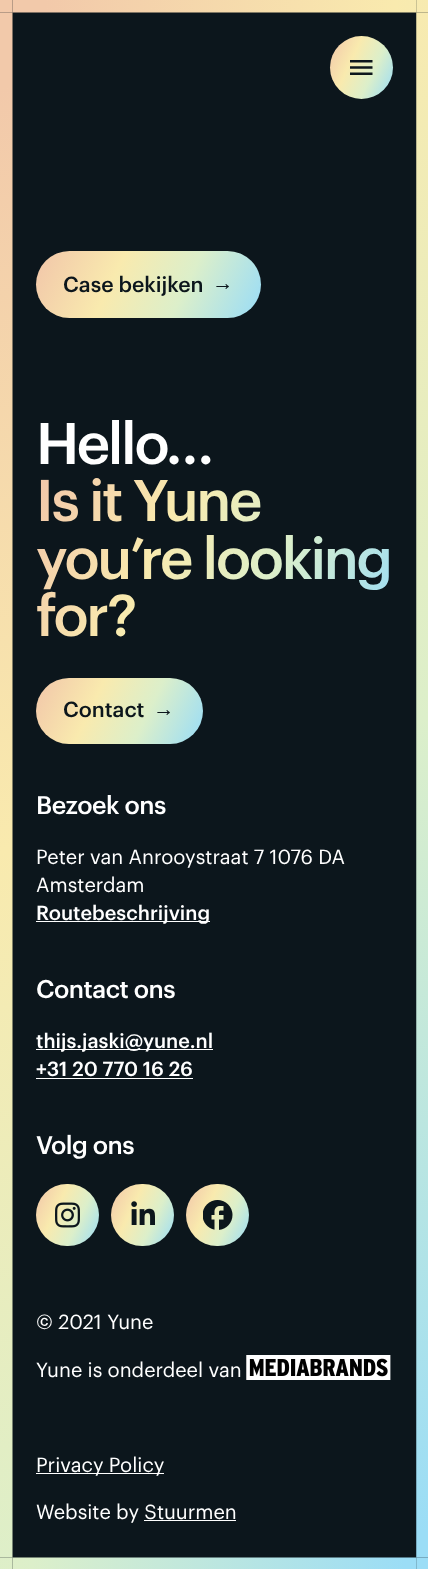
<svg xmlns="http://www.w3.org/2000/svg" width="428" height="1569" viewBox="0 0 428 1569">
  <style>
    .t1 { font: 500 21.25px Graphik; fill: #0c161c; }
    .t2 { font: 21.25px Liberation Sans; fill: #0c161c; }
    .t3 { font: 500 57.5px Graphik; letter-spacing: -2.25px; fill: #fff; }
    .t4 { font: 500 57.5px Graphik; letter-spacing: -2.25px; fill: url(#g1); }
    .t5 { font: 500 25px Graphik; letter-spacing: -0.5px; fill: #fff; }
    .t6 { font: 20px Graphik; fill: #fff; }
    .t7 { font: 500 20px Graphik; fill: #fff; }
  </style>
  <defs>
    <linearGradient id="g1" gradientUnits="userSpaceOnUse" x1="390" y1="645" x2="35" y2="475"><stop offset="0.01" stop-color="#9bddf6"/><stop offset="0.35" stop-color="#dcefca"/><stop offset="0.65" stop-color="#f9eaae"/><stop offset="0.97" stop-color="#f2c9aa"/></linearGradient>
    <linearGradient id="g2" gradientUnits="userSpaceOnUse" x1="399" y1="85" x2="324" y2="50"><stop offset="0.01" stop-color="#9bddf6"/><stop offset="0.35" stop-color="#dcefca"/><stop offset="0.65" stop-color="#f9eaae"/><stop offset="0.97" stop-color="#f2c9aa"/></linearGradient>
    <linearGradient id="g3" gradientUnits="userSpaceOnUse" x1="253" y1="334" x2="44" y2="235"><stop offset="0.01" stop-color="#9bddf6"/><stop offset="0.35" stop-color="#dcefca"/><stop offset="0.65" stop-color="#f9eaae"/><stop offset="0.97" stop-color="#f2c9aa"/></linearGradient>
    <linearGradient id="g4" gradientUnits="userSpaceOnUse" x1="200" y1="749" x2="39" y2="672"><stop offset="0.01" stop-color="#9bddf6"/><stop offset="0.35" stop-color="#dcefca"/><stop offset="0.65" stop-color="#f9eaae"/><stop offset="0.97" stop-color="#f2c9aa"/></linearGradient>
    <linearGradient id="g5" gradientUnits="userSpaceOnUse" x1="105" y1="1233" x2="30" y2="1197"><stop offset="0.01" stop-color="#9bddf6"/><stop offset="0.35" stop-color="#dcefca"/><stop offset="0.65" stop-color="#f9eaae"/><stop offset="0.97" stop-color="#f2c9aa"/></linearGradient>
    <linearGradient id="g6" gradientUnits="userSpaceOnUse" x1="180" y1="1233" x2="105" y2="1197"><stop offset="0.01" stop-color="#9bddf6"/><stop offset="0.35" stop-color="#dcefca"/><stop offset="0.65" stop-color="#f9eaae"/><stop offset="0.97" stop-color="#f2c9aa"/></linearGradient>
    <linearGradient id="g7" gradientUnits="userSpaceOnUse" x1="255" y1="1233" x2="180" y2="1197"><stop offset="0.01" stop-color="#9bddf6"/><stop offset="0.35" stop-color="#dcefca"/><stop offset="0.65" stop-color="#f9eaae"/><stop offset="0.97" stop-color="#f2c9aa"/></linearGradient>
  </defs>
  <rect width="100%" height="100%" fill="#0c161c"/>
  <circle cx="361.5" cy="67.5" r="31.5" fill="url(#g2)"/>
  <image x="350" y="60" width="23" height="15" href="images/2.png"/>
  <rect x="36" y="251" width="225" height="67" rx="33.5" fill="url(#g3)"/>
  <text x="63" y="292" class="t1">Case bekijken</text>
  <text x="212" y="290" class="t2">→</text>
  <text x="36" y="464" class="t3">Hello…</text>
  <text x="36" y="521" class="t4">Is it Yune</text>
  <text x="36" y="579" class="t4">you’re looking</text>
  <text x="36" y="636" class="t4">for?</text>
  <rect x="36" y="678" width="167" height="66" rx="33" fill="url(#g4)"/>
  <text x="63" y="717" class="t1">Contact</text>
  <text x="153" y="716" class="t2">→</text>
  <text x="36" y="814" class="t5">Bezoek ons</text>
  <text x="36" y="864" class="t6">Peter van Anrooystraat 7 1076 DA</text>
  <text x="36" y="892" class="t6">Amsterdam</text>
  <rect x="36" y="921" width="174" height="1" fill="#fff"/>
  <text x="36" y="920" class="t7">Routebeschrijving</text>
  <text x="36" y="998" class="t5">Contact ons</text>
  <rect x="36" y="1049" width="177" height="1" fill="#fff"/>
  <text x="36" y="1048" class="t7">thijs.jaski@yune.nl</text>
  <text x="36" y="1076" class="t7">+31 20 770 16 26</text>
  <rect x="36" y="1078" width="157" height="1" fill="#fff"/>
  <text x="36" y="1154" class="t5">Volg ons</text>
  <rect x="36" y="1184" width="63" height="62" rx="31" fill="url(#g5)"/>
  <image x="55" y="1202" width="25" height="26" href="images/3.png"/>
  <rect x="111" y="1184" width="63" height="62" rx="31" fill="url(#g6)"/>
  <image x="131" y="1201" width="24" height="24" href="images/4.png"/>
  <rect x="186" y="1184" width="63" height="62" rx="31" fill="url(#g7)"/>
  <image x="203" y="1200" width="30" height="30" href="images/5.png"/>
  <text x="36" y="1329" class="t6">© 2021 Yune</text>
  <text x="36" y="1377" class="t6">Yune is onderdeel van</text>
  <image x="246" y="1355" width="145" height="25" href="images/6.png"/>
  <rect x="36" y="1473" width="128" height="1" fill="#fff"/>
  <text x="36" y="1472" class="t6">Privacy Policy</text>
  <text x="36" y="1519" class="t6">Website by Stuurmen</text>
  <rect x="144" y="1520" width="92" height="1" fill="#fff"/>
  <image x="0" y="0" width="428" height="1569" href="images/1.png"/>
</svg>
